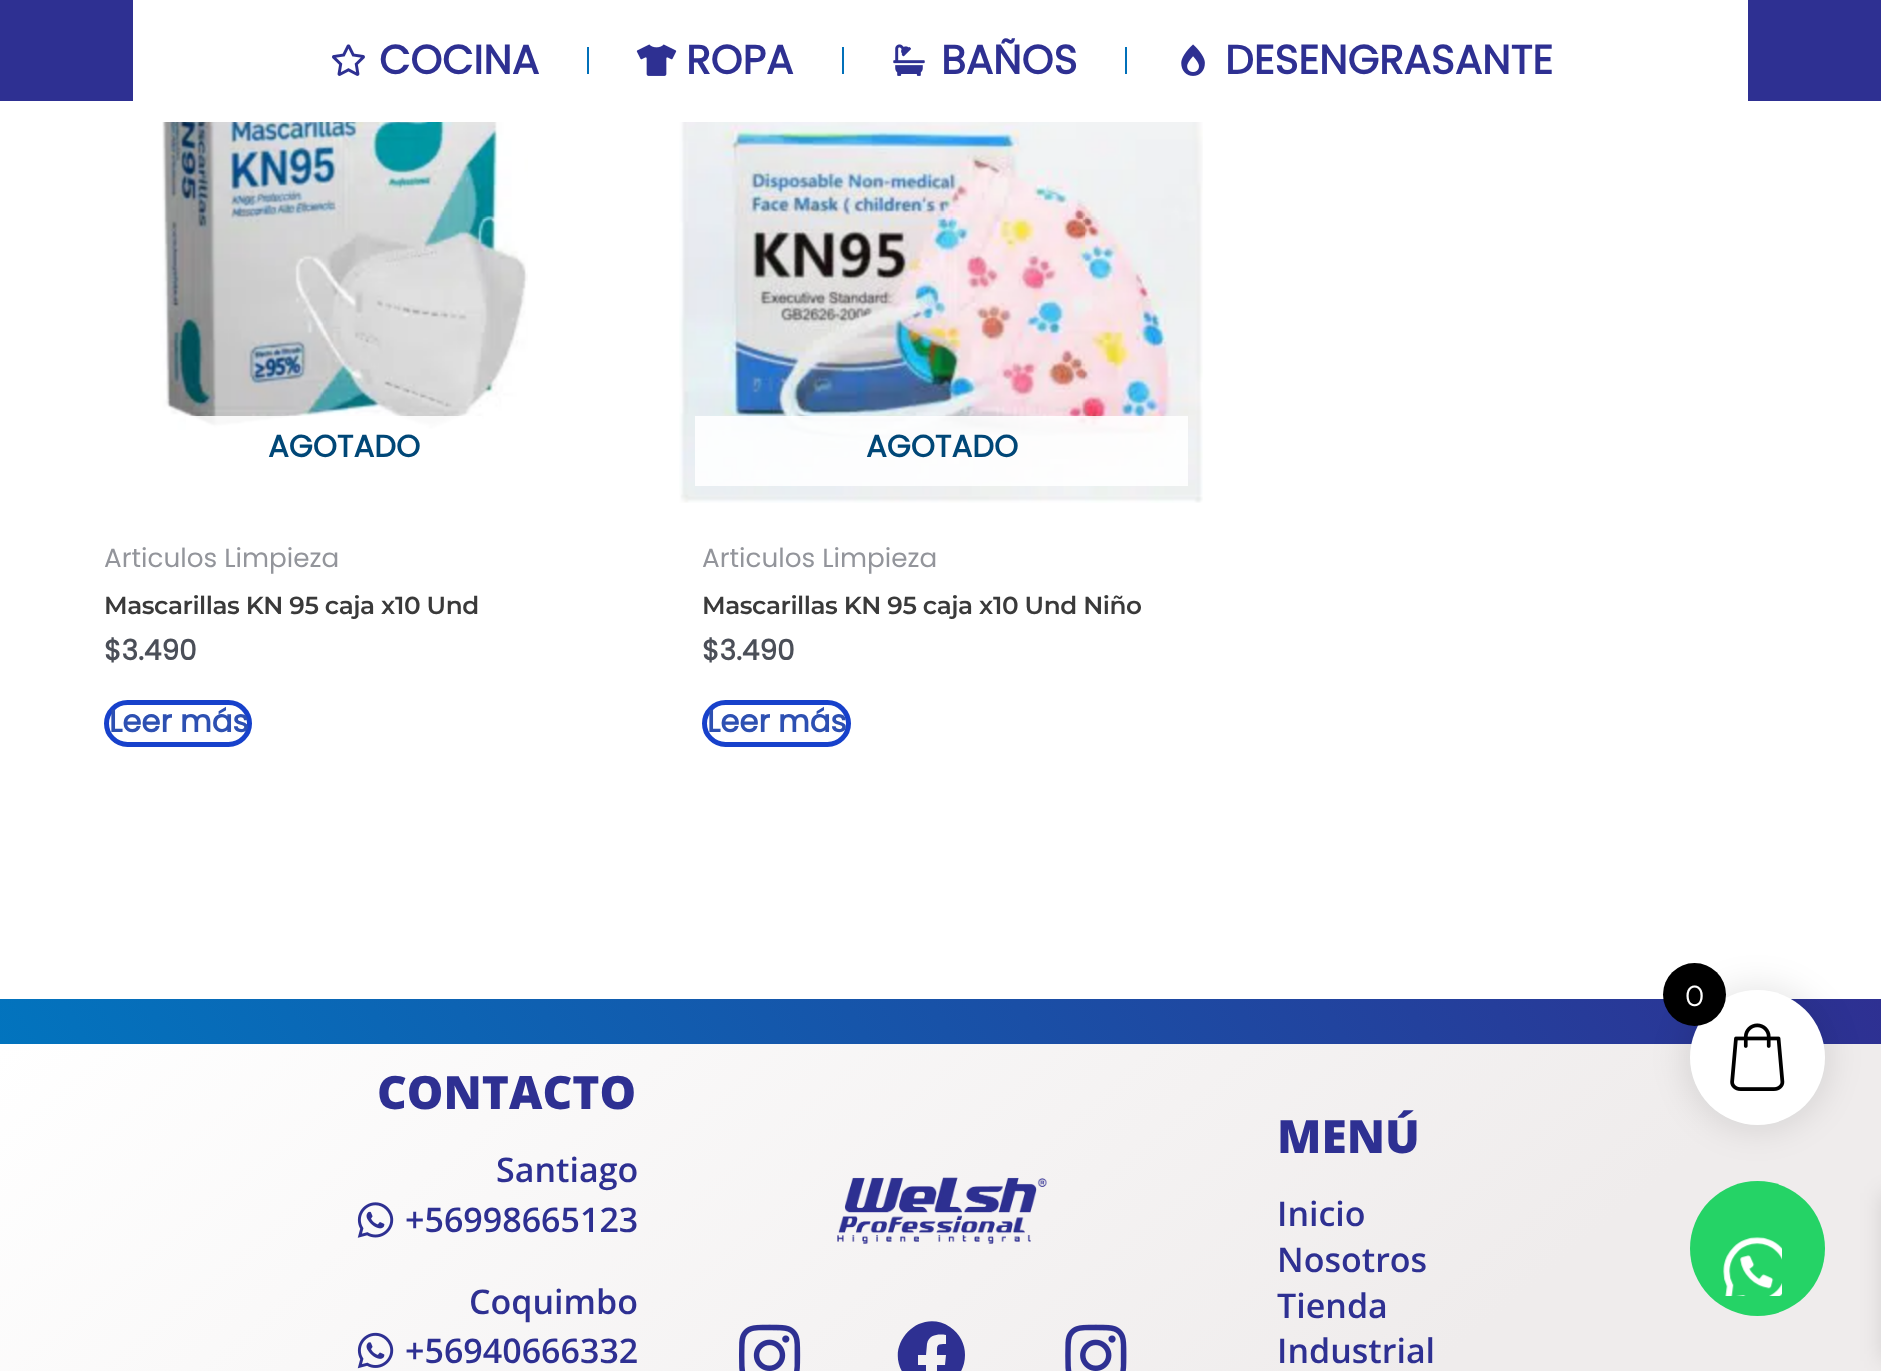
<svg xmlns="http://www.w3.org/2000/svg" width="1881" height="1371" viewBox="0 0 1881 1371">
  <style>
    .t1 { font: bold 40.5px Poppins; fill: #2e3092; }
    .t2 { font: bold 30.75px Poppins; fill: #004777; }
    .t3 { font: 26.25px Poppins; fill: #93959b; }
    .t4 { font: 600 24.75px Montserrat; letter-spacing: -0.45px; fill: #3a3a3a; }
    .t5 { font: bold 28px Poppins; fill: #4b4f58; }
    .t6 { font: bold 30.75px Poppins; fill: #2d50b2; }
    .t7 { font: 800 46px Open Sans; fill: #2e3092; }
    .t8 { font: 600 34px Open Sans; fill: #2e3092; }
    .t9 { font: 29px Montserrat; fill: #fff; }
  </style>
  <defs>
    <linearGradient id="g1" gradientUnits="userSpaceOnUse" x1="1656" y1="609" x2="225" y2="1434"><stop offset="0" stop-color="#2e3092"/><stop offset="1" stop-color="#0274be"/></linearGradient>
    <linearGradient id="g2" gradientUnits="userSpaceOnUse" x1="432" y1="682" x2="1449" y2="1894"><stop offset="0" stop-color="#fff"/><stop offset="0.74" stop-color="#efecec"/></linearGradient>
  </defs>
  <rect width="100%" height="100%" fill="#fff"/>
  <rect x="0" y="0" width="1881" height="101" fill="#2e3092"/>
  <rect x="133" y="0" width="1615" height="101" fill="#fff"/>
  <image x="332" y="44" width="33" height="32" href="images/1.png"/>
  <text x="379" y="74" class="t1">COCINA</text>
  <rect x="587" y="47" width="2" height="27" fill="#0170b9"/>
  <image x="636" y="44" width="41" height="32" href="images/2.png"/>
  <text x="686" y="74" class="t1">ROPA</text>
  <rect x="842" y="47" width="2" height="27" fill="#0170b9"/>
  <image x="893" y="44" width="32" height="32" href="images/3.png"/>
  <text x="941" y="74" class="t1">BAÑOS</text>
  <rect x="1125" y="47" width="2" height="27" fill="#0170b9"/>
  <image x="1181" y="44" width="24" height="32" href="images/4.png"/>
  <text x="1225" y="74" class="t1">DESENGRASANTE</text>
  <image x="160" y="122" width="368" height="308" href="images/5.png"/>
  <rect x="186" y="416" width="296" height="14" fill="#ffffffe0"/>
  <text x="268" y="457" class="t2">AGOTADO</text>
  <text x="104" y="567" class="t3">Articulos Limpieza</text>
  <text x="104" y="614" class="t4">Mascarillas KN 95 caja x10 Und</text>
  <text x="104" y="660" class="t5">$3.490</text>
  <rect x="106.5" y="702.5" width="143" height="42" rx="21" fill="none" stroke="#1741cb" stroke-width="5"/>
  <text x="109" y="732" class="t6">Leer más</text>
  <image x="679" y="122" width="524" height="381" href="images/6.png"/>
  <rect x="695" y="416" width="493" height="70" fill="#ffffffe0"/>
  <text x="866" y="457" class="t2">AGOTADO</text>
  <text x="702" y="567" class="t3">Articulos Limpieza</text>
  <text x="702" y="614" class="t4">Mascarillas KN 95 caja x10 Und Niño</text>
  <text x="702" y="660" class="t5">$3.490</text>
  <rect x="704.5" y="702.5" width="144" height="42" rx="21" fill="none" stroke="#1741cb" stroke-width="5"/>
  <text x="707" y="732" class="t6">Leer más</text>
  <rect x="0" y="999" width="1881" height="45" fill="url(#g1)"/>
  <rect x="0" y="1044" width="1881" height="327" fill="url(#g2)"/>
  <text x="377" y="1109" class="t7">CONTACTO</text>
  <text x="496" y="1182" class="t8">Santiago</text>
  <image x="357" y="1202" width="37" height="36" href="images/7.png"/>
  <text x="405" y="1232" class="t8">+56998665123</text>
  <text x="469" y="1314" class="t8">Coquimbo</text>
  <image x="357" y="1332" width="37" height="37" href="images/8.png"/>
  <text x="405" y="1363" class="t8">+56940666332</text>
  <image x="837" y="1177" width="210" height="67" href="images/9.png"/>
  <image x="739" y="1324" width="62" height="47" href="images/10.png"/>
  <path d="M965 1355C965 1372 953 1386 937 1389V1365H945L946 1355H937C937 1345 936 1344 946 1344V1335C939 1334 929 1334 927 1344L926 1355H918V1365H926V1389C918 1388 911 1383 906 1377C881 1348 918 1306 950 1327C960 1334 965 1344 965 1355Z" fill="#2e3092"/>
  <image x="1065" y="1324" width="62" height="47" href="images/11.png"/>
  <text x="1277" y="1153" class="t7">MENÚ</text>
  <text x="1277" y="1226" class="t8">Inicio</text>
  <text x="1277" y="1272" class="t8">Nosotros</text>
  <text x="1277" y="1318" class="t8">Tienda</text>
  <text x="1277" y="1363" class="t8">Industrial</text>
  <rect x="1685" y="986" width="144" height="144" rx="72" fill="#0000001a" filter="blur(17px)"/>
  <circle cx="1757.5" cy="1057.5" r="67.5" fill="#fff"/>
  <circle cx="1694.5" cy="994.5" r="31.5" fill="#000"/>
  <text x="1685" y="1006" class="t9">0</text>
  <image x="1730" y="1023" width="55" height="68" href="images/12.png"/>
  <rect x="1881" y="1193" width="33" height="168" fill="#0000001a" filter="blur(11px)"/>
  <circle cx="1757.5" cy="1248.5" r="67.5" fill="#25d366"/>
  <image x="1723" y="1237" width="59" height="59" href="images/13.png"/>
</svg>
